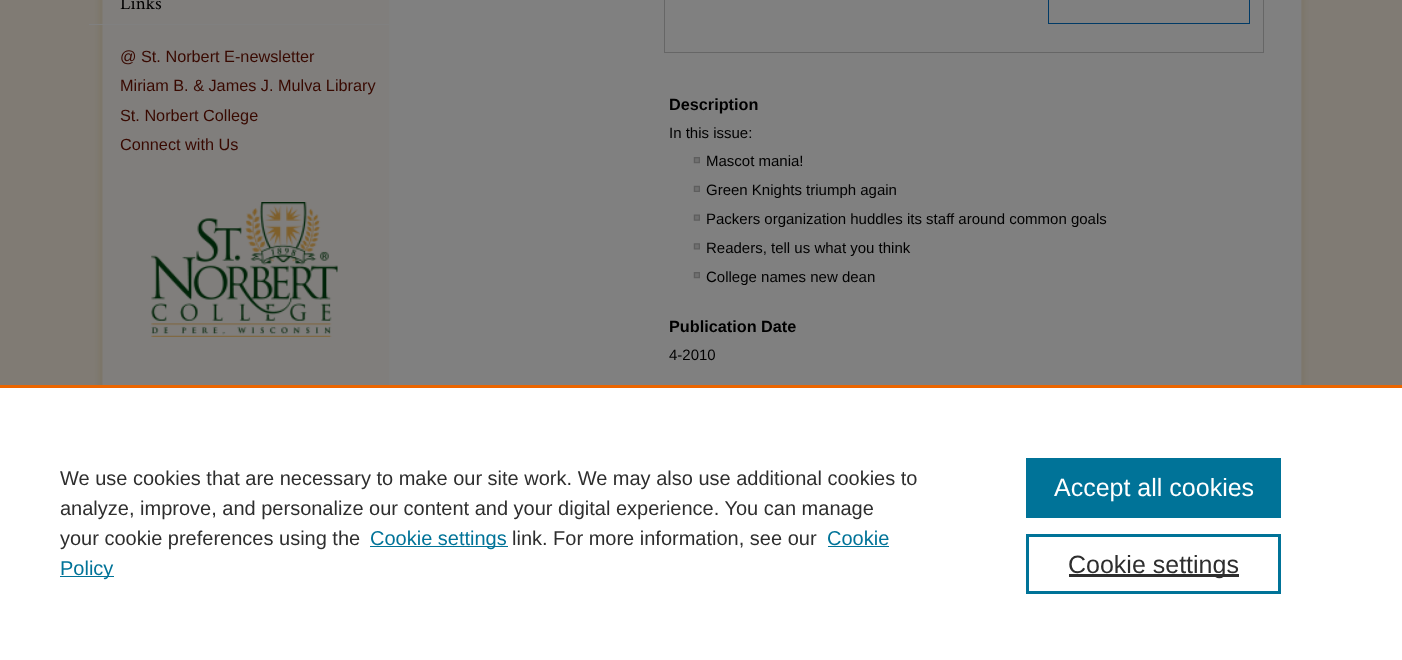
<svg xmlns="http://www.w3.org/2000/svg" width="1402" height="660" viewBox="0 0 1402 660">
  <style>
    .t1 { font: 19px Crimson Text; fill: #000; }
    .t2 { font: 16.25px Liberation Sans; fill: #380900; }
    .t3 { font: bold 16.25px Liberation Sans; fill: #000; }
    .t4 { font: 15px Liberation Sans; fill: #000; }
    .t5 { font: 20px Liberation Sans; fill: #2e2e2e; }
    .t6 { font: 20px Liberation Sans; fill: #007398; }
    .t7 { font: 25px Liberation Sans; fill: #fff; }
    .t8 { font: 25px Liberation Sans; fill: #2e2e2e; }
  </style>
  <rect width="100%" height="100%" fill="#807b74"/>
  <image x="89" y="0" width="1225" height="385" href="images/1.png"/>
  <rect x="89" y="24" width="300" height="1" fill="#808080"/>
  <text x="120" y="9" class="t1">Links</text>
  <text x="120" y="62" class="t2">@ St. Norbert E-newsletter</text>
  <text x="120" y="91" class="t2">Miriam B. &amp; James J. Mulva Library</text>
  <text x="120" y="121" class="t2">St. Norbert College</text>
  <text x="120" y="150" class="t2">Connect with Us</text>
  <image x="151" y="202" width="187" height="135" href="images/2.png"/>
  <rect x="664.5" y="-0.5" width="599" height="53" fill="none" stroke="#666"/>
  <rect x="1048.5" y="-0.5" width="201" height="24" fill="none" stroke="#003a66"/>
  <text x="669" y="110" class="t3">Description</text>
  <text x="669" y="138" class="t4">In this issue:</text>
  <image x="693" y="157" width="7" height="7" href="images/3.png"/>
  <text x="706" y="166" class="t4">Mascot mania!</text>
  <image x="693" y="185" width="7" height="7" href="images/4.png"/>
  <text x="706" y="195" class="t4">Green Knights triumph again</text>
  <image x="693" y="214" width="7" height="7" href="images/5.png"/>
  <text x="706" y="224" class="t4">Packers organization huddles its staff around common goals</text>
  <image x="693" y="243" width="7" height="7" href="images/6.png"/>
  <text x="706" y="253" class="t4">Readers, tell us what you think</text>
  <image x="693" y="272" width="7" height="7" href="images/3.png"/>
  <text x="706" y="282" class="t4">College names new dean</text>
  <text x="669" y="332" class="t3">Publication Date</text>
  <text x="669" y="360" class="t4">4-2010</text>
  <rect x="0" y="388" width="1402" height="272" fill="#fff"/>
  <rect x="0" y="385" width="1402" height="3" fill="#eb6500"/>
  <text x="60" y="485" class="t5">We use cookies that are necessary to make our site work. We may also use additional cookies to</text>
  <text x="60" y="515" class="t5">analyze, improve, and personalize our content and your digital experience. You can manage</text>
  <text x="60" y="545" class="t5">your cookie preferences using the</text>
  <rect x="370" y="546" width="138" height="1" fill="#007398"/>
  <text x="370" y="545" class="t6">Cookie settings</text>
  <text x="512" y="545" class="t5">link. For more information, see our</text>
  <text x="827" y="545" class="t6">Cookie</text>
  <rect x="828" y="546" width="61" height="1" fill="#007398"/>
  <rect x="60" y="576" width="54" height="1" fill="#007398"/>
  <text x="60" y="575" class="t6">Policy</text>
  <rect x="1026" y="458" width="255" height="60" fill="#007398"/>
  <text x="1054" y="496" class="t7">Accept all cookies</text>
  <rect x="1027.5" y="535.5" width="252" height="57" fill="none" stroke="#007398" stroke-width="3"/>
  <rect x="1069" y="574" width="170" height="3" fill="#2e2e2e"/>
  <text x="1068" y="573" class="t8">Cookie settings</text>
</svg>
